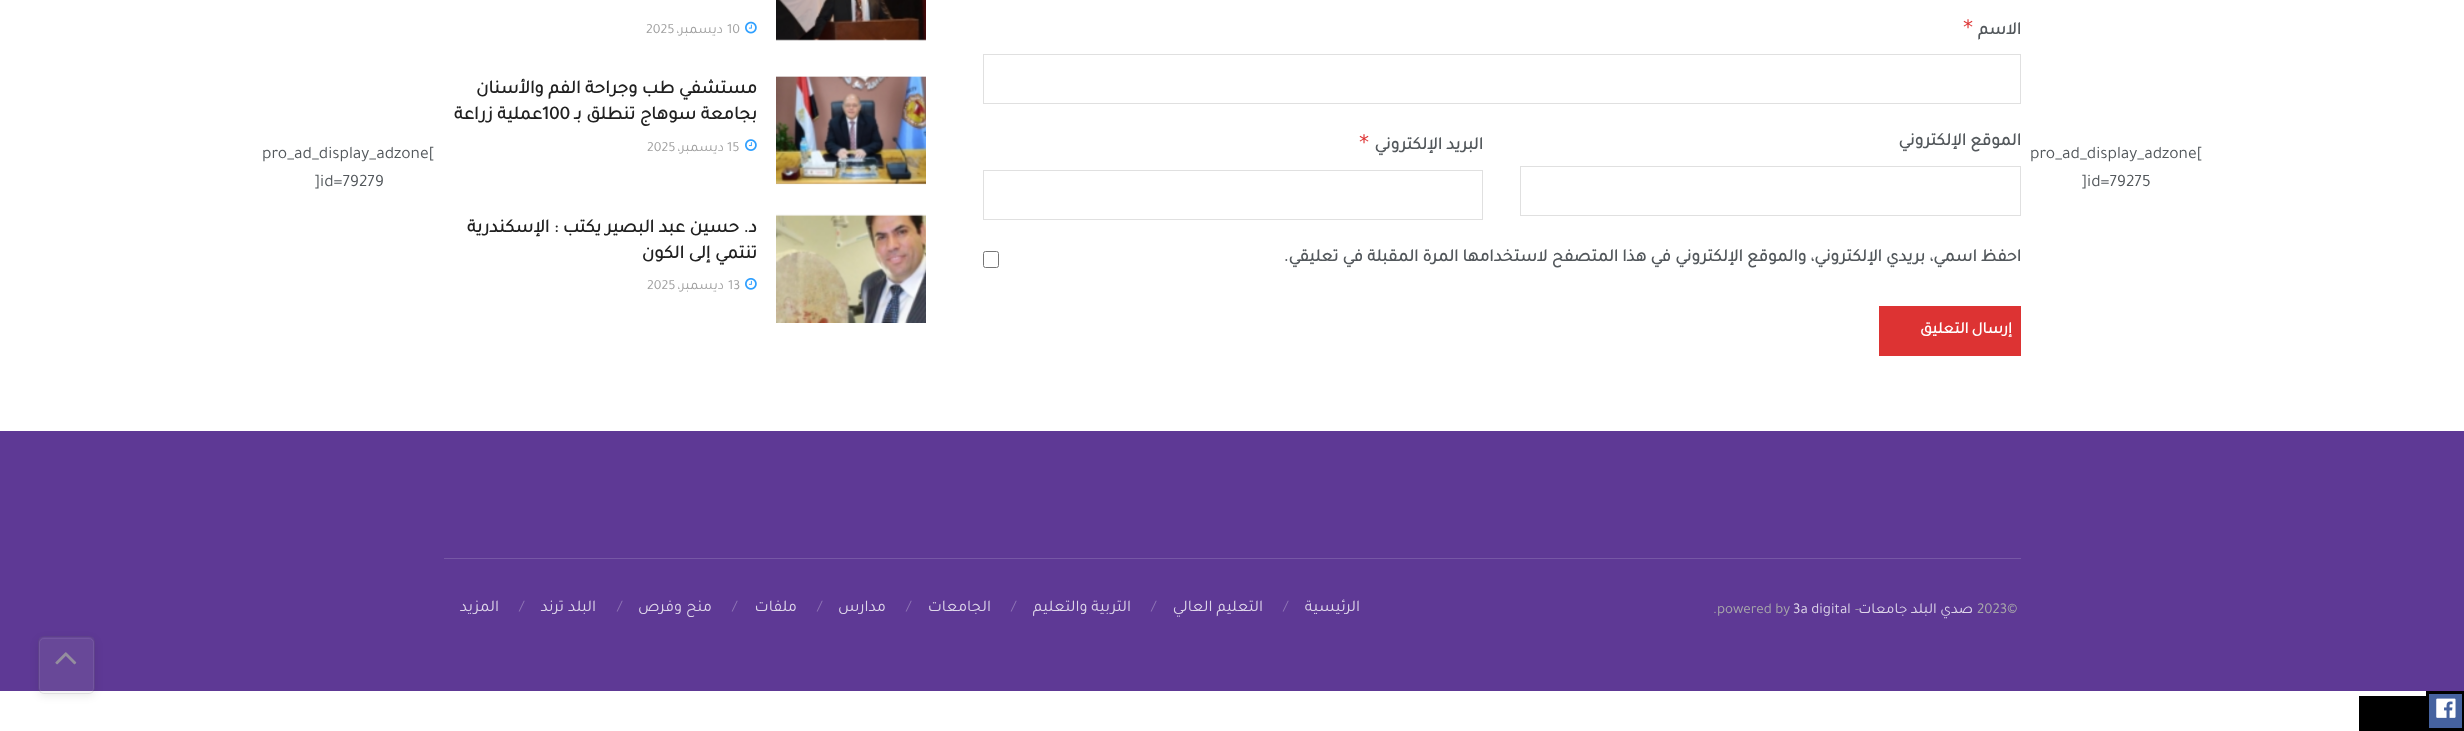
<svg xmlns="http://www.w3.org/2000/svg" width="2464" height="731" viewBox="0 0 2464 731">
  <style>
    .t1 { font: 17.5px Tajawal; fill: #53585c; }
    .t2 { font: bold 17.5px Tajawal; direction: rtl; fill: #53585c; }
    .t3 { font: 20px DejaVu Sans Mono; fill: #d33; }
    .t4 { font: bold 16.25px Tajawal; letter-spacing: 1.25px; direction: rtl; fill: #fff; }
    .t5 { font: 14px Tajawal; fill: #a0a0a0; }
    .t6 { font: 14px Tajawal; direction: rtl; fill: #a0a0a0; }
    .t7 { font: bold 18.75px Tajawal; direction: rtl; fill: #212121; }
    .t8 { font: bold 18.75px Tajawal; fill: #212121; }
    .t9 { font: 15px Tajawal; fill: #a8a8aa; }
    .t10 { font: 15px Tajawal; direction: rtl; fill: #dfd7ea; }
    .t11 { font: 15px Tajawal; fill: #dfd7ea; }
    .t12 { font: 16.25px Tajawal; direction: rtl; fill: #dfd7ea; }
    .t13 { font: 16.25px Tajawal; fill: #8e74b5; }
  </style>
  <defs>
    <clipPath id="clip1"><path d="M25 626H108V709H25ZM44 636H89C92.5 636 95 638.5 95 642V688C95 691.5 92.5 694 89 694H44C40.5 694 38 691.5 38 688V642C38 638.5 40.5 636 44 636Z" clip-rule="evenodd"/></clipPath>
  </defs>
  <rect width="100%" height="100%" fill="#fff"/>
  <text x="2030" y="158" class="t1">pro_ad_display_adzone[</text>
  <text x="2081" y="186" class="t1">]id=79275</text>
  <text x="2021" y="34" class="t2">الاسم</text>
  <text x="1962" y="34" class="t3">*</text>
  <rect x="983.5" y="54.5" width="1037" height="49" fill="none" stroke="#e0e0e0"/>
  <text x="2021" y="145" class="t2">الموقع الإلكتروني</text>
  <rect x="1520.5" y="166.5" width="500" height="49" fill="none" stroke="#e0e0e0"/>
  <text x="1483" y="149" class="t2">البريد الإلكتروني</text>
  <text x="1358" y="149" class="t3">*</text>
  <rect x="983.5" y="170.5" width="499" height="49" fill="none" stroke="#e0e0e0"/>
  <text x="2021" y="261" class="t2">احفظ اسمي، بريدي الإلكتروني، والموقع الإلكتروني في هذا المتصفح لاستخدامها المرة المقبلة في تعليقي.</text>
  <rect x="983.5" y="251.5" width="15" height="16" rx="2" fill="none" stroke="#767676"/>
  <rect x="1879" y="306" width="142" height="50" fill="#d33"/>
  <text x="2012" y="333" word-spacing="-1" class="t4">إرسال التعليق</text>
  <image x="776" y="0" width="150" height="41" href="images/1.png"/>
  <image x="745" y="21" width="12" height="13" href="images/2.png"/>
  <text x="727" y="33" class="t5">10</text>
  <text x="723" y="33" class="t6">ديسمبر،</text>
  <text x="646" y="33" class="t5">2025</text>
  <rect x="776" y="76" width="150" height="108" fill="#f7f7f7"/>
  <image x="776" y="76" width="150" height="109" href="images/3.png"/>
  <text x="757" y="93" class="t7">مستشفي طب وجراحة الفم والأسنان</text>
  <text x="757" y="119" class="t7">بجامعة سوهاج تنطلق بـ</text>
  <text x="542" y="119" class="t8">100</text>
  <text x="542" y="119" class="t7">عملية زراعة</text>
  <image x="745" y="139" width="12" height="12" href="images/4.png"/>
  <text x="727" y="151" class="t5">15</text>
  <text x="724" y="151" class="t6">ديسمبر،</text>
  <text x="647" y="151" class="t5">2025</text>
  <rect x="776" y="215" width="150" height="1" fill="#f7f7f7"/>
  <image x="776" y="214" width="150" height="109" href="images/5.png"/>
  <text x="757" y="232" class="t7">د. حسين عبد البصير يكتب : الإسكندرية</text>
  <text x="757" y="258" class="t7">تنتمي إلى الكون</text>
  <image x="745" y="278" width="12" height="12" href="images/6.png"/>
  <text x="728" y="289" class="t5">13</text>
  <text x="724" y="289" class="t6">ديسمبر،</text>
  <text x="647" y="289" class="t5">2025</text>
  <rect x="0" y="431" width="2464" height="260" fill="#5e3995"/>
  <rect x="444" y="558" width="1577" height="1" fill="#7657a5"/>
  <text x="1977" y="613" class="t9">2023©</text>
  <text x="1973" y="613" class="t10">صدي البلد جامعات</text>
  <text x="1855" y="613" class="t9">-</text>
  <text x="1793" y="613" class="t11">3a digital</text>
  <text x="1717" y="613" class="t9">powered by</text>
  <text x="1713" y="613" class="t9">.</text>
  <text x="1360" y="611" class="t12">الرئيسية</text>
  <text x="1283" y="611" class="t13">/</text>
  <text x="1263" y="611" class="t12">التعليم العالي</text>
  <text x="1151" y="611" class="t13">/</text>
  <text x="1131" y="611" class="t12">التربية والتعليم</text>
  <text x="1011" y="611" class="t13">/</text>
  <text x="991" y="611" class="t12">الجامعات</text>
  <text x="906" y="611" class="t13">/</text>
  <text x="886" y="611" class="t12">مدارس</text>
  <text x="817" y="611" class="t13">/</text>
  <text x="797" y="611" class="t12">ملفات</text>
  <text x="732" y="611" class="t13">/</text>
  <text x="712" y="611" class="t12">منح وفرص</text>
  <text x="617" y="611" class="t13">/</text>
  <text x="596" y="611" class="t12">البلد ترند</text>
  <text x="519" y="611" class="t13">/</text>
  <text x="499" y="611" class="t12">المزيد</text>
  <g clip-path="url(#clip1)">
    <rect x="38" y="639" width="57" height="57" rx="6" fill="#00000014" filter="blur(4px)"/>
  </g>
  <rect x="38" y="636" width="57" height="58" rx="6" fill="#b4b4b41f"/>
  <rect x="39.5" y="638.5" width="54" height="54" rx="4.5" fill="none" stroke="#ffffff14"/>
  <rect x="38.5" y="636.5" width="56" height="57" rx="5.5" fill="none" stroke="#00000017"/>
  <image x="55" y="652" width="22" height="13" href="images/7.png"/>
  <text x="262" y="158" class="t1">pro_ad_display_adzone[</text>
  <text x="314" y="186" class="t1">]id=79279</text>
  <rect x="2427.5" y="692.5" width="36" height="37" fill="#45629f" stroke="#000" stroke-width="3"/>
  <image x="2436" y="698" width="20" height="20" href="images/8.png"/>
  <rect x="2359" y="696" width="67" height="35" fill="#000"/>
</svg>
